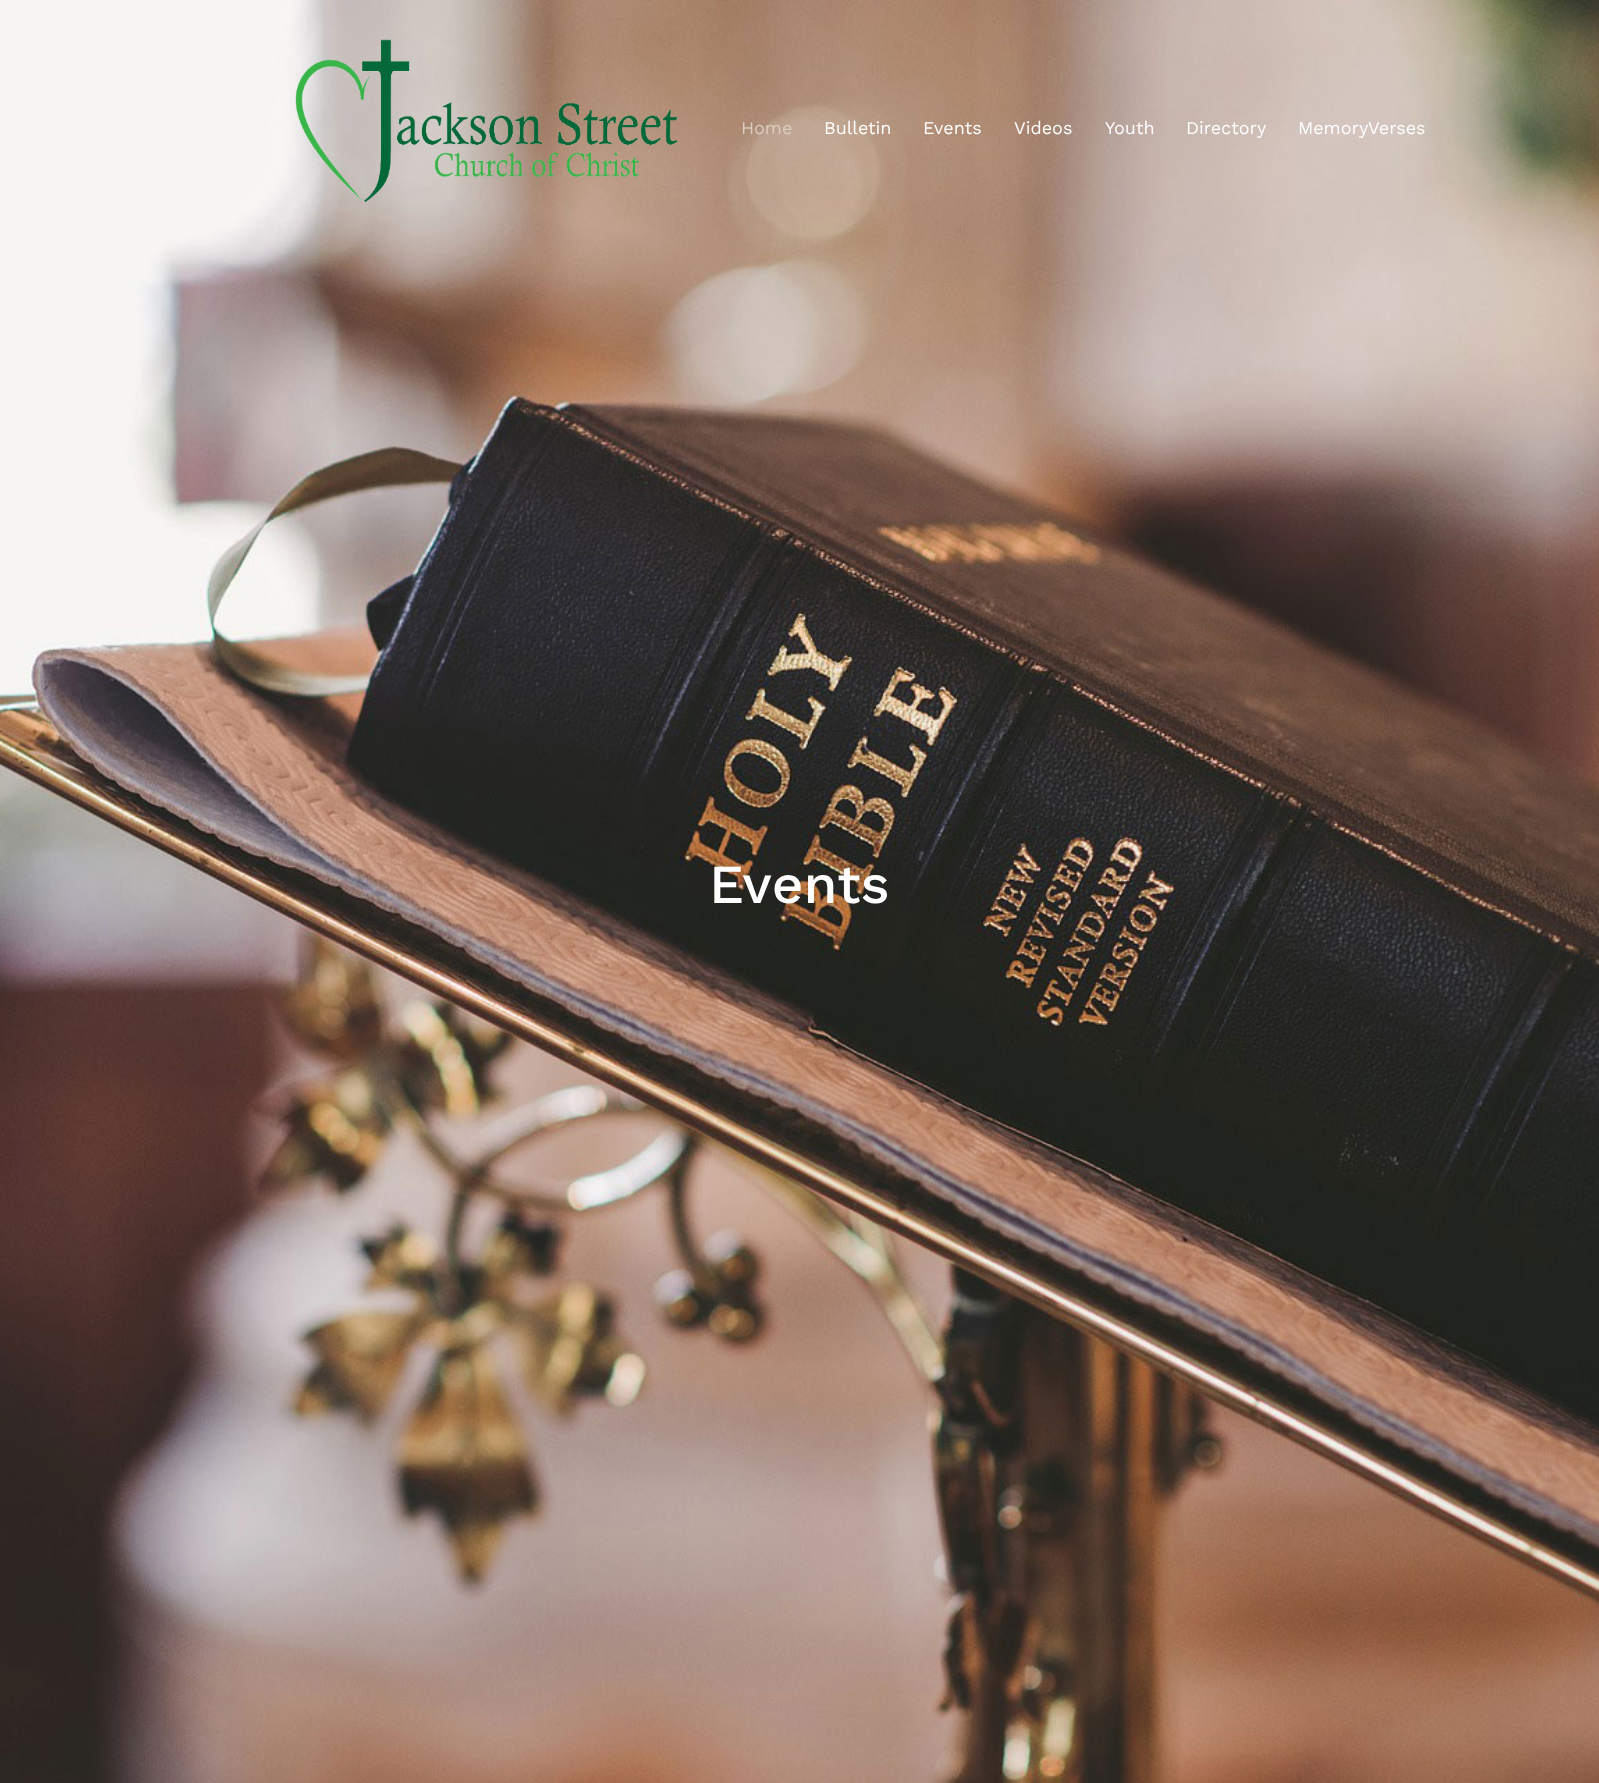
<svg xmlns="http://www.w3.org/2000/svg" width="1599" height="1783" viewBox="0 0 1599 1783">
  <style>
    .t1 { font: 18px Work Sans; fill: #daccc1; }
    .t2 { font: 18px Work Sans; fill: #fff; }
    .t3 { font: 500 55px Work Sans; fill: #fff; }
  </style>
  <rect width="100%" height="100%" fill="#fff"/>
  <image x="0" y="0" width="1599" height="1783" href="images/2.png"/>
  <image x="295" y="39" width="383" height="163" href="images/1.png"/>
  <text x="741" y="134" class="t1">Home</text>
  <text x="824" y="134" class="t2">Bulletin</text>
  <text x="923" y="134" class="t2">Events</text>
  <text x="1014" y="134" class="t2">Videos</text>
  <text x="1105" y="134" class="t2">Youth</text>
  <text x="1186" y="134" class="t2">Directory</text>
  <text x="1298" y="134" class="t2">MemoryVerses</text>
  <text x="709" y="903" class="t3">Events</text>
</svg>
